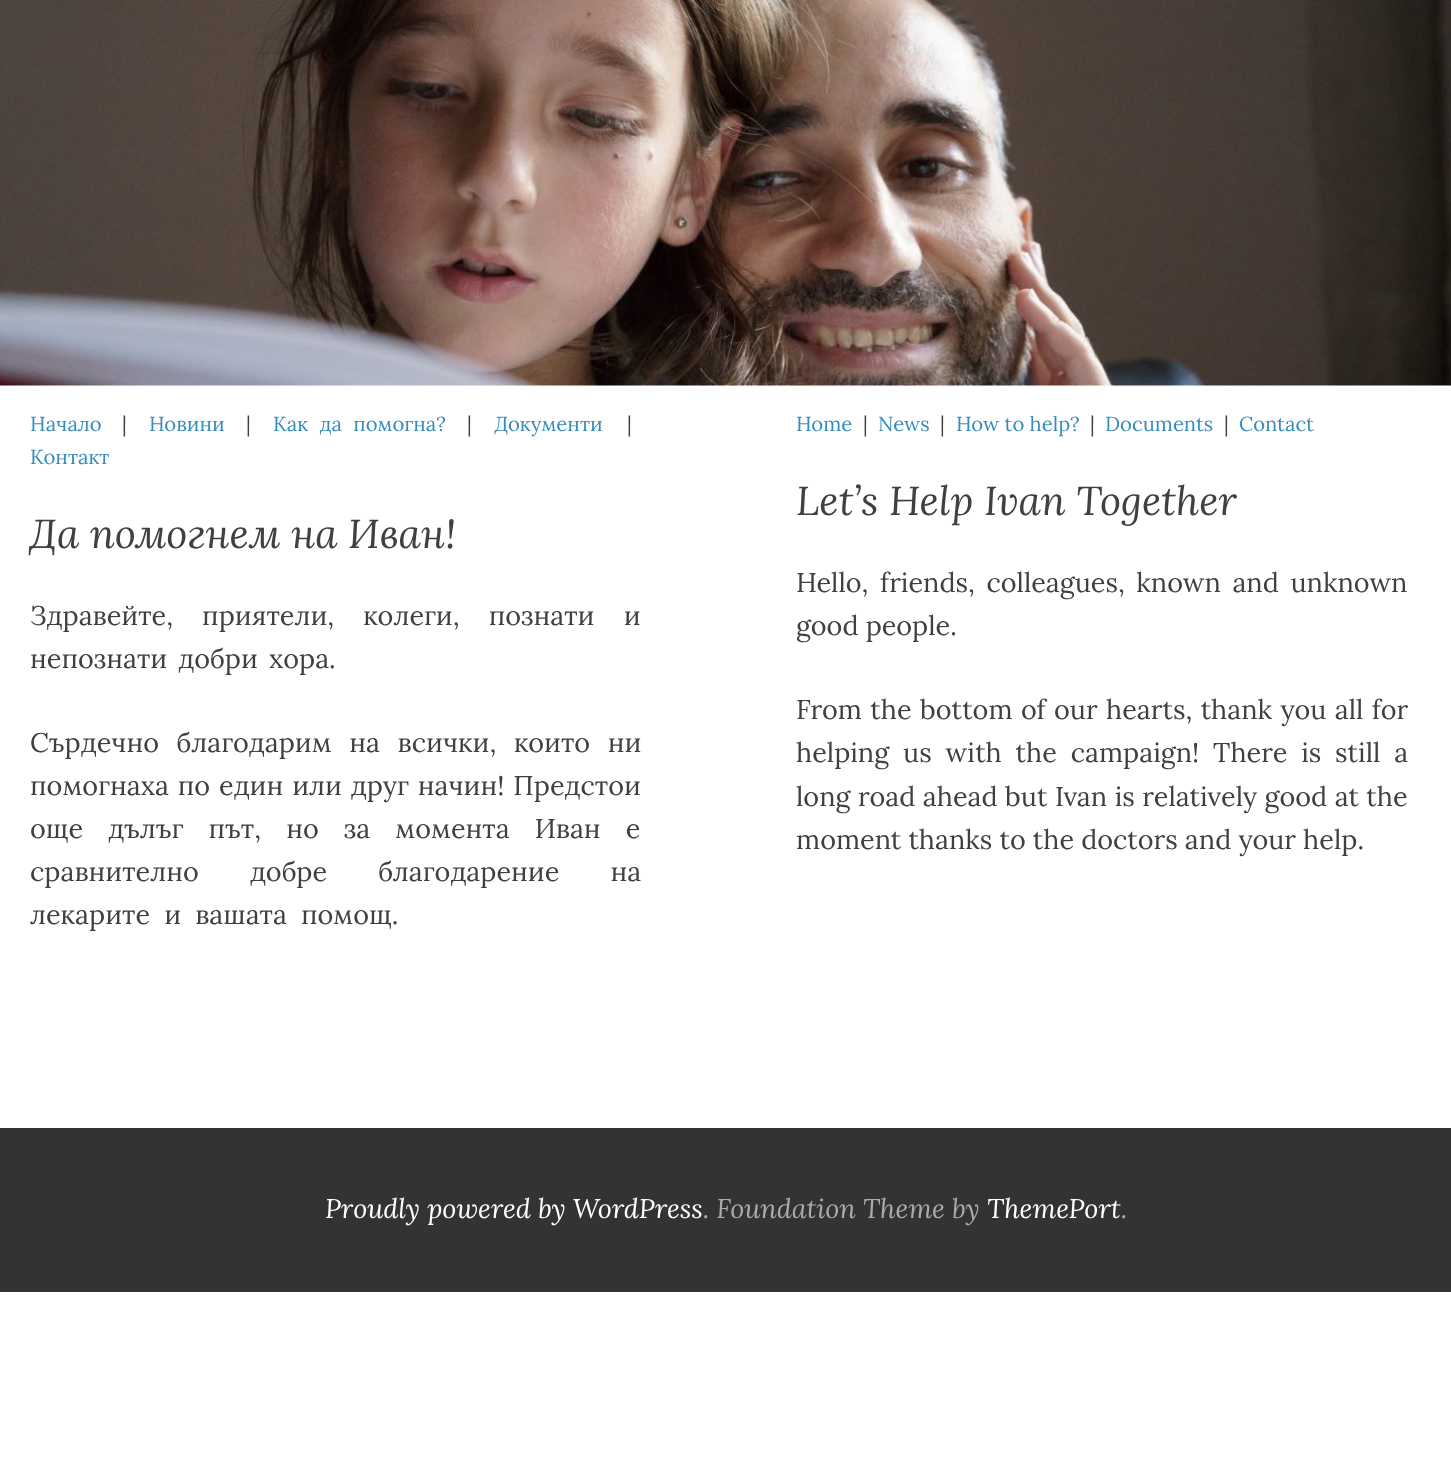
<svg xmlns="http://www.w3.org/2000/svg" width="1451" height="1457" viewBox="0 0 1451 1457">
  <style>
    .t1 { font: 20.25px Lora; fill: #368cbb; }
    .t2 { font: 20.25px Lora; fill: #404040; }
    .t3 { font: italic 40.5px Lora; fill: #404040; }
    .t4 { font: 27px Lora; fill: #404040; }
    .t5 { font: italic 27px Lora; fill: #fff; }
    .t6 { font: italic 27px Lora; fill: #aaa; }
  </style>
  <rect width="100%" height="100%" fill="#fff"/>
  <image x="0" y="0" width="1451" height="386" href="images/1.png"/>
  <text x="30" y="431" class="t1">Начало</text>
  <text x="122" y="431" class="t2">|</text>
  <text x="149" y="431" class="t1">Новини</text>
  <text x="246" y="431" class="t2">|</text>
  <text x="273" y="431" word-spacing="6" class="t1">Как да помогна?</text>
  <text x="467" y="431" class="t2">|</text>
  <text x="494" y="431" class="t1">Документи</text>
  <text x="627" y="431" class="t2">|</text>
  <text x="30" y="464" class="t1">Контакт</text>
  <text x="30" y="548" class="t3">Да помогнем на Иван!</text>
  <text x="30" y="625" word-spacing="22" class="t4">Здравейте, приятели, колеги, познати и</text>
  <text x="30" y="668" word-spacing="4" class="t4">непознати добри хора.</text>
  <text x="30" y="752" word-spacing="10.5" class="t4">Сърдечно благодарим на всички, които ни</text>
  <text x="30" y="795" word-spacing="1.75" class="t4">помогнаха по един или друг начин! Предстои</text>
  <text x="30" y="838" word-spacing="18" class="t4">още дълъг път, но за момента Иван е</text>
  <text x="30" y="881" word-spacing="44" class="t4">сравнително добре благодарение на</text>
  <text x="30" y="924" word-spacing="7" class="t4">лекарите и вашата помощ.</text>
  <text x="796" y="431" class="t1">Home</text>
  <text x="863" y="431" class="t2">|</text>
  <text x="878" y="431" class="t1">News</text>
  <text x="940" y="431" class="t2">|</text>
  <text x="956" y="431" class="t1">How to help?</text>
  <text x="1090" y="431" class="t2">|</text>
  <text x="1105" y="431" class="t1">Documents</text>
  <text x="1224" y="431" class="t2">|</text>
  <text x="1239" y="431" class="t1">Contact</text>
  <text x="796" y="515" class="t3">Let’s Help Ivan Together</text>
  <text x="796" y="592" word-spacing="4.5" class="t4">Hello, friends, colleagues, known and unknown</text>
  <text x="796" y="635" class="t4">good people.</text>
  <text x="796" y="719" word-spacing="1.25" class="t4">From the bottom of our hearts, thank you all for</text>
  <text x="796" y="762" word-spacing="6.75" class="t4">helping us with the campaign! There is still a</text>
  <text x="796" y="806" word-spacing="0.4" class="t4">long road ahead but Ivan is relatively good at the</text>
  <text x="796" y="849" class="t4">moment thanks to the doctors and your help.</text>
  <rect x="0" y="1128" width="1451" height="164" fill="#333"/>
  <text x="325" y="1218" class="t5">Proudly powered by WordPress</text>
  <text x="703" y="1218" class="t6">. Foundation Theme by</text>
  <text x="987" y="1218" class="t5">ThemePort</text>
  <text x="1121" y="1218" class="t6">.</text>
</svg>
